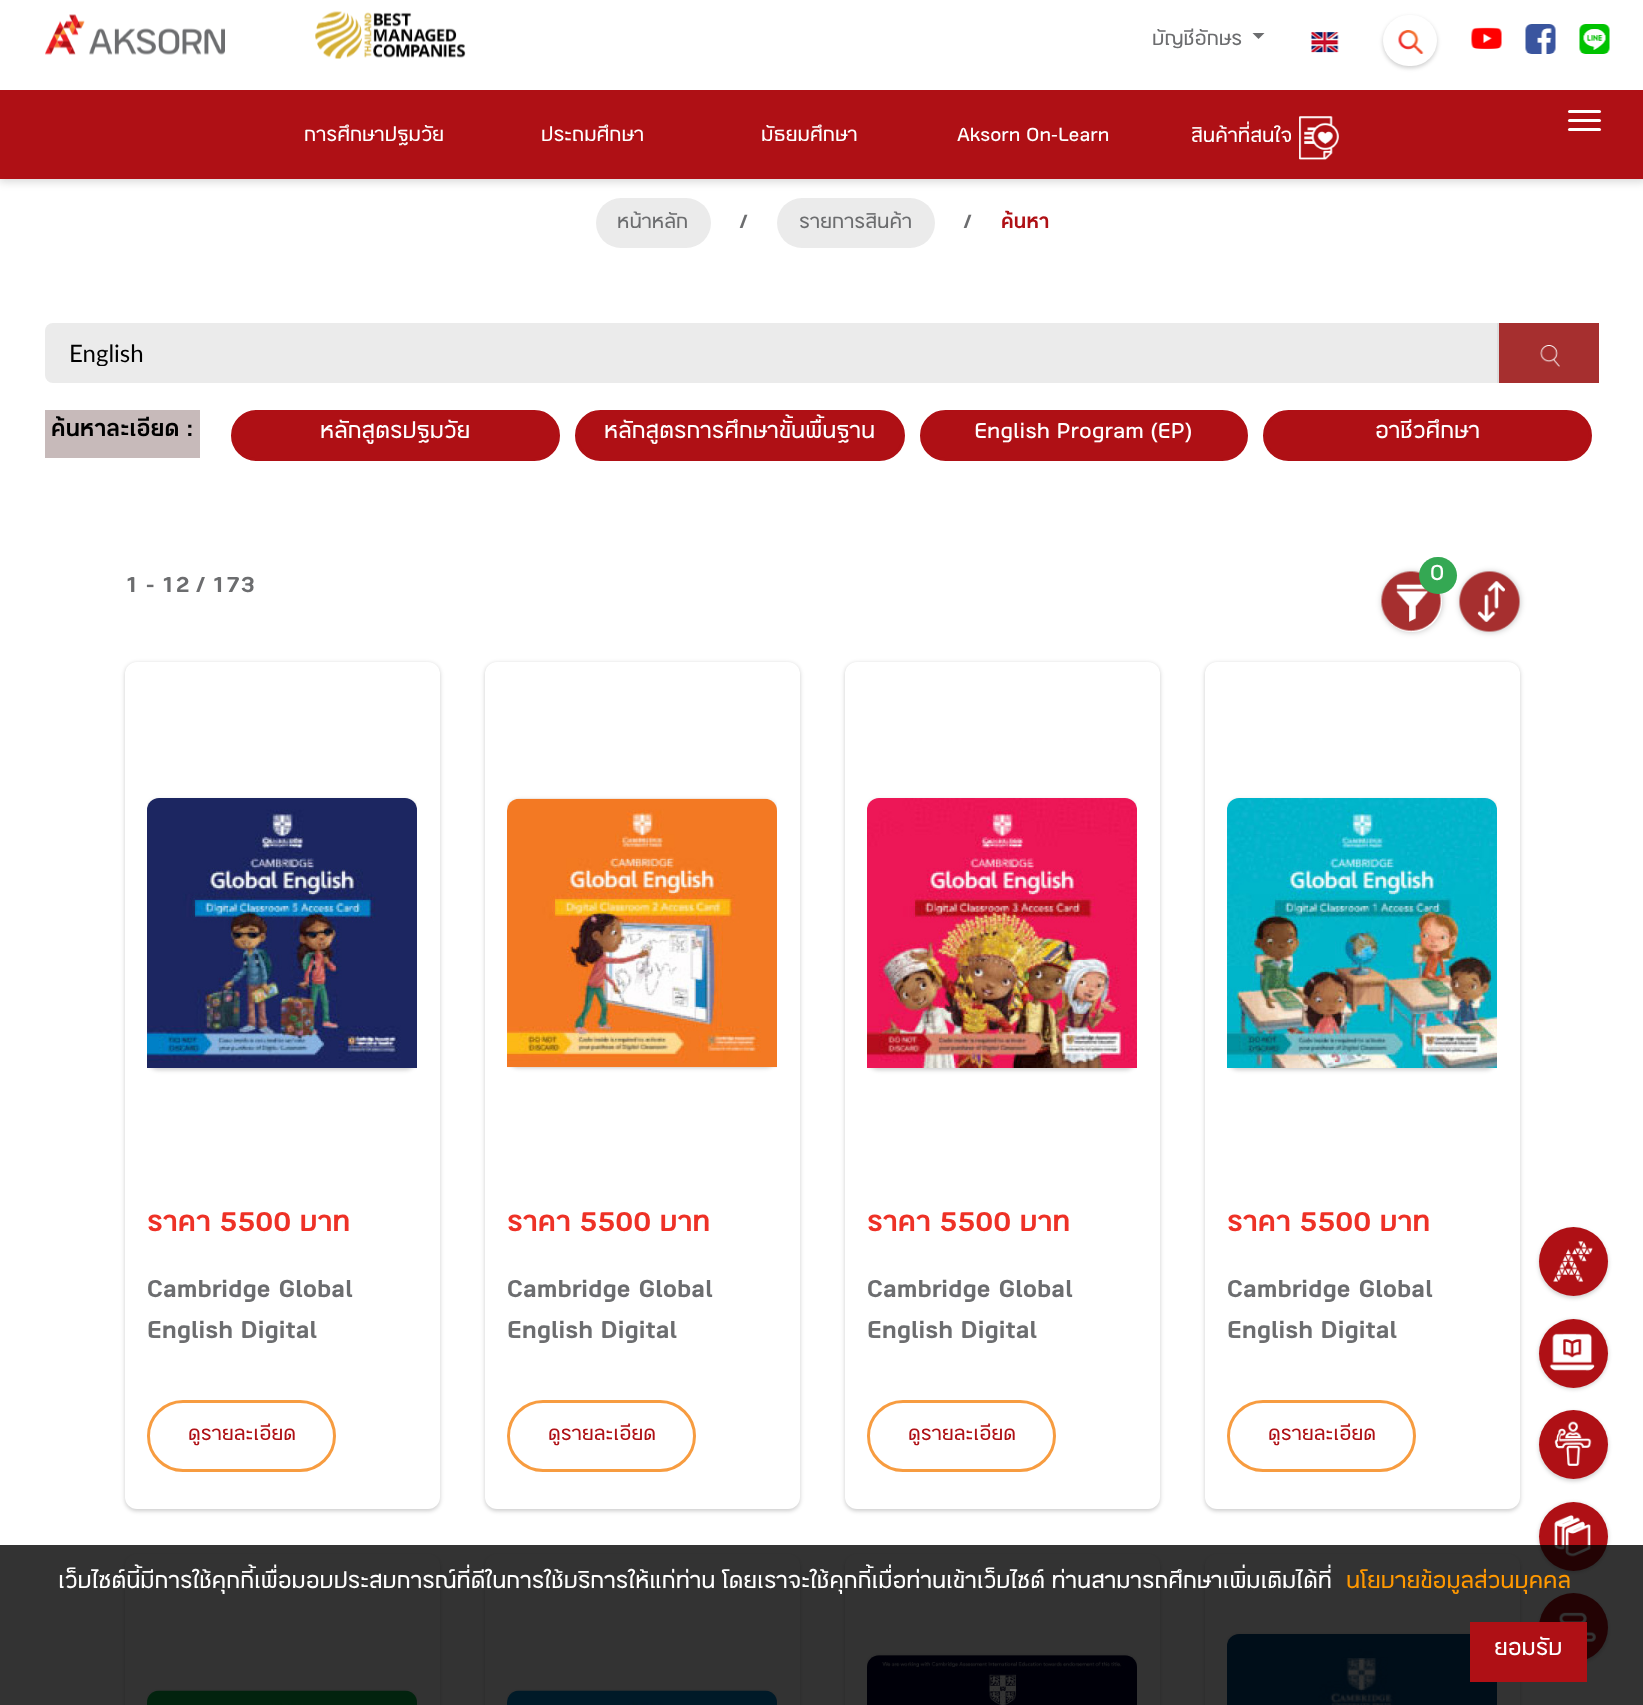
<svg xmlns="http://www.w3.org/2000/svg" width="1643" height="1705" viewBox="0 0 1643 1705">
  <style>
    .t1 { font: 21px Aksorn; fill: #6c6d6f; }
    .t2 { font: 21px Aksorn; fill: #fff; }
    .t3 { font: bold 21px Aksorn; fill: #6c6d6f; }
    .t4 { font: bold 21px Aksorn; fill: #af1015; }
    .t5 { font: 24px Lato; fill: #000; }
    .t6 { font: bold 24px Aksorn; fill: #000; }
    .t7 { font: 24px Aksorn; fill: #fff; }
    .t8 { font: bold 24px Aksorn; fill: #6c6d6f; }
    .t9 { font: bold 30px Aksorn; fill: #ee3126; }
    .t10 { font: bold 27px Aksorn; fill: #6c6d6f; }
    .t11 { font: 21px Aksorn; fill: #af1015; }
    .t12 { font: 24px Aksorn; fill: #ff9800; }
  </style>
  <defs>
    <clipPath id="clip1"><rect x="69" y="338" width="1476" height="28"/></clipPath>
    <clipPath id="clip2"><path d="M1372 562H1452V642H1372ZM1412 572C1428.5 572 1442 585.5 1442 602C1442 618.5 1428.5 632 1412 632C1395.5 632 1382 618.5 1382 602C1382 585.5 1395.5 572 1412 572Z" clip-rule="evenodd"/></clipPath>
    <clipPath id="clip3"><rect x="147" y="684" width="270" height="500"/></clipPath>
    <clipPath id="clip4"><rect x="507" y="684" width="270" height="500"/></clipPath>
    <clipPath id="clip5"><rect x="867" y="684" width="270" height="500"/></clipPath>
    <clipPath id="clip6"><rect x="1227" y="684" width="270" height="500"/></clipPath>
    <clipPath id="clip7"><rect x="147" y="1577" width="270" height="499"/></clipPath>
    <clipPath id="clip8"><rect x="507" y="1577" width="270" height="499"/></clipPath>
    <clipPath id="clip9"><rect x="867" y="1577" width="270" height="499"/></clipPath>
    <clipPath id="clip10"><rect x="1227" y="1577" width="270" height="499"/></clipPath>
  </defs>
  <rect width="100%" height="100%" fill="#fff"/>
  <rect x="-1" y="0" width="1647" height="182" fill="#00000026" filter="blur(4.5px)"/>
  <rect x="0" y="0" width="1643" height="90" fill="#fff"/>
  <image x="45" y="14" width="180" height="41" href="images/1.png"/>
  <image x="315" y="11" width="151" height="48" href="images/2.png"/>
  <text x="1152" y="45" class="t1">บัญชีอักษร</text>
  <path d="M1252.5 33H1264.5L1258.5 39Z" fill="#6c6d6f"/>
  <image x="1311" y="32" width="28" height="21" href="images/3.png"/>
  <rect x="1383" y="17" width="54" height="51" rx="25.5" fill="#00000033" filter="blur(2px)"/>
  <rect x="1383" y="15" width="54" height="51" rx="25.5" fill="#fff"/>
  <image x="1398" y="30" width="26" height="24" href="images/4.png"/>
  <image x="1471" y="27" width="31" height="22" href="images/5.png"/>
  <image x="1525" y="24" width="31" height="30" href="images/6.png"/>
  <image x="1579" y="24" width="31" height="30" href="images/7.png"/>
  <rect x="0" y="90" width="1643" height="89" fill="#af1015"/>
  <text x="304" y="141" class="t2">การศึกษาปฐมวัย</text>
  <text x="541" y="141" class="t2">ประถมศึกษา</text>
  <text x="761" y="141" class="t2">มัธยมศึกษา</text>
  <text x="957" y="141" class="t2">Aksorn On-Learn</text>
  <text x="1191" y="142" class="t2">สินค้าที่สนใจ</text>
  <image x="1299" y="116" width="40" height="44" href="images/8.png"/>
  <rect x="1568" y="110" width="33" height="3" rx="1.5" fill="#fff"/>
  <rect x="1568" y="119" width="33" height="3" rx="1.5" fill="#fff"/>
  <rect x="1568" y="128" width="33" height="3" rx="1.5" fill="#fff"/>
  <rect x="596" y="198" width="115" height="50" rx="25" fill="#ebebeb"/>
  <text x="617" y="228" class="t1">หน้าหลัก</text>
  <text x="740" y="228" class="t3">/</text>
  <rect x="777" y="198" width="158" height="50" rx="25" fill="#ebebeb"/>
  <text x="799" y="228" class="t1">รายการสินค้า</text>
  <text x="964" y="228" class="t3">/</text>
  <text x="1001" y="228" class="t4">ค้นหา</text>
  <rect x="45" y="323" width="1554" height="60" rx="8" fill="#ebebeb"/>
  <g clip-path="url(#clip1)">
    <text x="69" y="362" class="t5">English</text>
  </g>
  <rect x="1499" y="323" width="100" height="60" fill="#a62f2f"/>
  <rect x="1497" y="323" width="2" height="60" fill="#ddd"/>
  <image x="1540" y="345" width="20" height="22" href="images/9.png"/>
  <rect x="45" y="410" width="155" height="48" fill="#c7baba"/>
  <text x="51" y="436" class="t6">ค้นหาละเอียด :</text>
  <rect x="232.5" y="411.5" width="326" height="48" rx="24" fill="#af1015" stroke="#af1015" stroke-width="3"/>
  <text x="320" y="438" class="t7">หลักสูตรปฐมวัย</text>
  <rect x="576.5" y="411.5" width="327" height="48" rx="24" fill="#af1015" stroke="#af1015" stroke-width="3"/>
  <text x="604" y="438" class="t7">หลักสูตรการศึกษาขั้นพื้นฐาน</text>
  <rect x="921.5" y="411.5" width="325" height="48" rx="24" fill="#af1015" stroke="#af1015" stroke-width="3"/>
  <text x="974" y="438" class="t7">English Program (EP)</text>
  <rect x="1264.5" y="411.5" width="326" height="48" rx="24" fill="#af1015" stroke="#af1015" stroke-width="3"/>
  <text x="1375" y="438" class="t7">อาชีวศึกษา</text>
  <g clip-path="url(#clip2)">
    <rect x="1382" y="572" width="60" height="60" rx="30" fill="#00000040" filter="blur(3px)"/>
  </g>
  <image x="1381" y="571" width="61" height="61" href="images/10.png"/>
  <rect x="1419" y="557" width="38" height="37" rx="18.5" fill="#34a853"/>
  <text x="1430" y="580" class="t7">0</text>
  <rect x="1460" y="572" width="60" height="60" rx="30" fill="#00000040" filter="blur(3px)"/>
  <image x="1459" y="571" width="61" height="61" href="images/11.png"/>
  <text x="125" y="592" class="t8">1 - 12 / 173</text>
  <rect x="125" y="663" width="315" height="848" rx="12" fill="#00000033" filter="blur(2px)"/>
  <rect x="125" y="662" width="315" height="847" rx="12" fill="#fff"/>
  <g clip-path="url(#clip3)">
    <rect x="147" y="800" width="270" height="270" rx="12" fill="#00000033" filter="blur(2px)"/>
  </g>
  <image x="147" y="798" width="270" height="270" href="images/12.png"/>
  <text x="147" y="1231" class="t9">ราคา 5500 บาท</text>
  <text x="147" y="1297" class="t10">Cambridge Global</text>
  <text x="147" y="1338" class="t10">English Digital</text>
  <rect x="148.5" y="1401.5" width="186" height="69" rx="34.5" fill="none" stroke="#f79c40" stroke-width="3"/>
  <text x="188" y="1440" class="t11">ดูรายละเอียด</text>
  <rect x="485" y="663" width="315" height="848" rx="12" fill="#00000033" filter="blur(2px)"/>
  <rect x="485" y="662" width="315" height="847" rx="12" fill="#fff"/>
  <g clip-path="url(#clip4)">
    <rect x="507" y="800" width="270" height="268" rx="12" fill="#00000033" filter="blur(2px)"/>
  </g>
  <image x="507" y="798" width="270" height="270" href="images/13.png"/>
  <text x="507" y="1231" class="t9">ราคา 5500 บาท</text>
  <text x="507" y="1297" class="t10">Cambridge Global</text>
  <text x="507" y="1338" class="t10">English Digital</text>
  <rect x="508.5" y="1401.5" width="186" height="69" rx="34.5" fill="none" stroke="#f79c40" stroke-width="3"/>
  <text x="548" y="1440" class="t11">ดูรายละเอียด</text>
  <rect x="845" y="663" width="315" height="848" rx="12" fill="#00000033" filter="blur(2px)"/>
  <rect x="845" y="662" width="315" height="847" rx="12" fill="#fff"/>
  <g clip-path="url(#clip5)">
    <rect x="867" y="800" width="270" height="270" rx="12" fill="#00000033" filter="blur(2px)"/>
  </g>
  <image x="867" y="798" width="270" height="270" href="images/14.png"/>
  <text x="867" y="1231" class="t9">ราคา 5500 บาท</text>
  <text x="867" y="1297" class="t10">Cambridge Global</text>
  <text x="867" y="1338" class="t10">English Digital</text>
  <rect x="868.5" y="1401.5" width="186" height="69" rx="34.5" fill="none" stroke="#f79c40" stroke-width="3"/>
  <text x="908" y="1440" class="t11">ดูรายละเอียด</text>
  <rect x="1205" y="663" width="315" height="848" rx="12" fill="#00000033" filter="blur(2px)"/>
  <rect x="1205" y="662" width="315" height="847" rx="12" fill="#fff"/>
  <g clip-path="url(#clip6)">
    <rect x="1227" y="800" width="270" height="270" rx="12" fill="#00000033" filter="blur(2px)"/>
  </g>
  <image x="1227" y="798" width="270" height="270" href="images/15.png"/>
  <text x="1227" y="1231" class="t9">ราคา 5500 บาท</text>
  <text x="1227" y="1297" class="t10">Cambridge Global</text>
  <text x="1227" y="1338" class="t10">English Digital</text>
  <rect x="1228.5" y="1401.5" width="186" height="69" rx="34.5" fill="none" stroke="#f79c40" stroke-width="3"/>
  <text x="1268" y="1440" class="t11">ดูรายละเอียด</text>
  <rect x="125" y="1556" width="315" height="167" rx="12" fill="#00000033" filter="blur(2px)"/>
  <rect x="125" y="1554" width="315" height="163" rx="12" fill="#fff"/>
  <g clip-path="url(#clip7)">
    <rect x="147" y="1692" width="270" height="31" rx="12" fill="#00000033" filter="blur(2px)"/>
  </g>
  <image x="147" y="1690" width="270" height="15" href="images/16.png"/>
  <rect x="485" y="1556" width="315" height="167" rx="12" fill="#00000033" filter="blur(2px)"/>
  <rect x="485" y="1554" width="315" height="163" rx="12" fill="#fff"/>
  <g clip-path="url(#clip8)">
    <rect x="507" y="1692" width="270" height="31" rx="12" fill="#00000033" filter="blur(2px)"/>
  </g>
  <image x="507" y="1690" width="270" height="15" href="images/17.png"/>
  <rect x="845" y="1556" width="315" height="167" rx="12" fill="#00000033" filter="blur(2px)"/>
  <rect x="845" y="1554" width="315" height="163" rx="12" fill="#fff"/>
  <g clip-path="url(#clip9)">
    <rect x="867" y="1656" width="270" height="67" rx="12" fill="#00000033" filter="blur(2px)"/>
  </g>
  <image x="867" y="1655" width="270" height="50" href="images/18.png"/>
  <rect x="1205" y="1556" width="315" height="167" rx="12" fill="#00000033" filter="blur(2px)"/>
  <rect x="1205" y="1554" width="315" height="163" rx="12" fill="#fff"/>
  <g clip-path="url(#clip10)">
    <rect x="1227" y="1635" width="270" height="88" rx="12" fill="#00000033" filter="blur(2px)"/>
  </g>
  <image x="1227" y="1634" width="270" height="71" href="images/19.png"/>
  <rect x="1539" y="1229" width="69" height="69" rx="34.5" fill="#00000033" filter="blur(2px)"/>
  <circle cx="1573.5" cy="1261.5" r="34.5" fill="#af1015"/>
  <image x="1553" y="1241" width="40" height="41" href="images/20.png"/>
  <rect x="1539" y="1320" width="69" height="69" rx="34.5" fill="#00000033" filter="blur(2px)"/>
  <circle cx="1573.5" cy="1353.5" r="34.5" fill="#af1015"/>
  <image x="1549" y="1333" width="46" height="38" href="images/21.png"/>
  <rect x="1539" y="1412" width="69" height="69" rx="34.5" fill="#00000033" filter="blur(2px)"/>
  <circle cx="1573.5" cy="1444.5" r="34.5" fill="#af1015"/>
  <image x="1554" y="1421" width="38" height="45" href="images/22.png"/>
  <rect x="1539" y="1503" width="69" height="69" rx="34.5" fill="#00000033" filter="blur(2px)"/>
  <circle cx="1573.5" cy="1536.5" r="34.5" fill="#af1015"/>
  <image x="1554" y="1515" width="37" height="42" href="images/23.png"/>
  <rect x="1539" y="1595" width="69" height="69" rx="34.5" fill="#00000033" filter="blur(2px)"/>
  <circle cx="1573.5" cy="1627.5" r="34.5" fill="#af1015"/>
  <image x="1558" y="1612" width="38" height="30" href="images/24.png"/>
  <rect x="0" y="1545" width="1643" height="160" fill="#000000cc"/>
  <text x="58" y="1588" class="t7">เว็บไซต์นี้มีการใช้คุกกี้เพื่อมอบประสบการณ์ที่ดีในการใช้บริการให้แก่ท่าน โดยเราจะใช้คุกกี้เมื่อท่านเข้าเว็บไซต์ ท่านสามารถศึกษาเพิ่มเติมได้ที่</text>
  <text x="1346" y="1588" class="t12">นโยบายข้อมูลส่วนบุคคล</text>
  <rect x="1470" y="1622" width="117" height="60" fill="#af1015"/>
  <text x="1494" y="1655" class="t7">ยอมรับ</text>
</svg>
